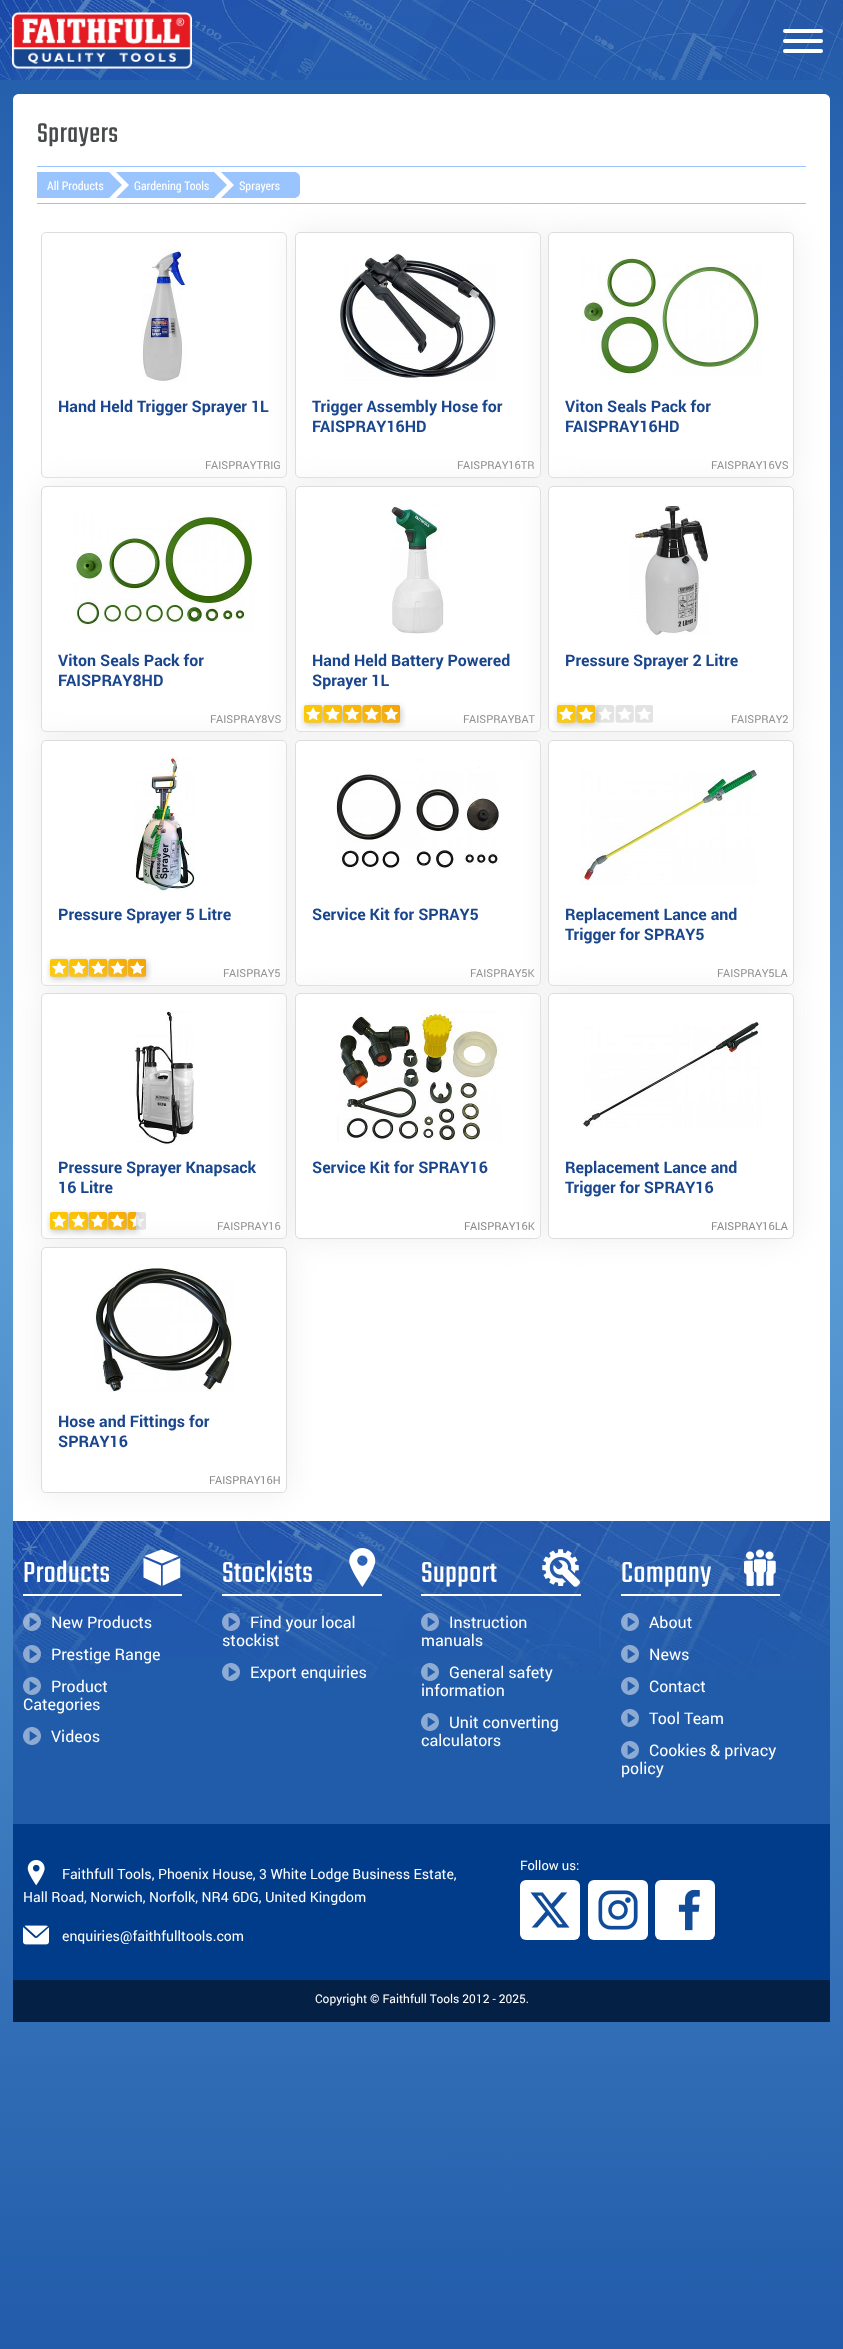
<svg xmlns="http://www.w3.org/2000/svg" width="843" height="2349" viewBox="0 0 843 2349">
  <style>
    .t1 { font: 300 30px Teko; letter-spacing: 0.5px; fill: #47494a; }
    .t2 { font: 12px Roboto Condensed; fill: #fff; }
    .t3 { font: bold 16px roboto; fill: #1a468d; }
    .t4 { font: 11px roboto; fill: #888; }
    .t5 { font: 300 32px Teko; letter-spacing: 0.5px; fill: #fff; }
    .t6 { font: 16px roboto; fill: #fff; }
    .t7 { font: 13px roboto; fill: #fff; }
    .t8 { font: 14px roboto; fill: #fff; }
    .t9 { font: 12px roboto; fill: #fff; }
  </style>
  <defs>
    <linearGradient id="g1" gradientUnits="userSpaceOnUse" x1="421" y1="0" x2="422" y2="2349"><stop offset="0" stop-color="#215baa"/><stop offset="0.5" stop-color="#5da0d7"/><stop offset="1" stop-color="#215baa"/></linearGradient>
  </defs>
  <rect width="100%" height="100%" fill="#fff"/>
  <rect x="0" y="80" width="843" height="2269" fill="url(#g1)"/>
  <image x="0" y="0" width="843" height="80" href="images/1.png"/>
  <image x="12" y="12" width="180" height="57" href="images/2.png"/>
  <rect x="783" y="39" width="40" height="4" rx="2" fill="#fff"/>
  <rect x="783" y="29" width="40" height="4" rx="2" fill="#fff"/>
  <rect x="783" y="49" width="40" height="4" rx="2" fill="#fff"/>
  <path d="M19 94H824C827.5 94 830 96.5 830 100V2022H13V100C13 96.5 15.5 94 19 94Z" fill="#fff"/>
  <text x="37" y="142" class="t1">Sprayers</text>
  <rect x="37" y="166" width="769" height="1" fill="#9ac4fd"/>
  <rect x="37" y="203" width="769" height="1" fill="#9ac4fd"/>
  <rect x="37" y="172" width="72" height="26" fill="#9ac4fd"/>
  <text x="47" y="190" class="t2">All Products</text>
  <path d="M109 198V172L122 185Z" fill="#9ac4fd"/>
  <rect x="129" y="172" width="85" height="26" fill="#9ac4fd"/>
  <path d="M116 172H129V185ZM129 198H116L129 185Z" fill="#9ac4fd"/>
  <text x="134" y="190" class="t2">Gardening Tools</text>
  <path d="M214 198V172L227 185Z" fill="#9ac4fd"/>
  <path d="M234 172H294C297.5 172 300 174.5 300 178V192C300 195.5 297.5 198 294 198H234Z" fill="#9ac4fd"/>
  <path d="M221 172H234V185ZM234 198H221L234 185Z" fill="#9ac4fd"/>
  <text x="239" y="190" class="t2">Sprayers</text>
  <rect x="41.5" y="232.5" width="245" height="245" rx="4.5" fill="none" stroke="#ddd"/>
  <image x="142" y="249" width="45" height="132" href="images/3.png"/>
  <text x="58" y="412" class="t3">Hand Held Trigger Sprayer 1L</text>
  <text x="205" y="469" class="t4">FAISPRAYTRIG</text>
  <rect x="295" y="232" width="246" height="246" rx="5" fill="#eee" filter="blur(15px)"/>
  <rect x="295.5" y="232.5" width="245" height="245" rx="4.5" fill="#fff" stroke="#ddd"/>
  <image x="340" y="253" width="156" height="128" href="images/4.png"/>
  <text x="312" y="412" class="t3">Trigger Assembly Hose for</text>
  <text x="312" y="432" class="t3">FAISPRAY16HD</text>
  <text x="457" y="469" class="t4">FAISPRAY16TR</text>
  <rect x="548" y="232" width="246" height="246" rx="5" fill="#eee" filter="blur(15px)"/>
  <rect x="548.5" y="232.5" width="245" height="245" rx="4.5" fill="#fff" stroke="#ddd"/>
  <image x="581" y="257" width="180" height="120" href="images/5.png"/>
  <text x="565" y="412" class="t3">Viton Seals Pack for</text>
  <text x="565" y="432" class="t3">FAISPRAY16HD</text>
  <text x="711" y="469" class="t4">FAISPRAY16VS</text>
  <rect x="41" y="486" width="246" height="246" rx="5" fill="#eee" filter="blur(15px)"/>
  <rect x="41.5" y="486.5" width="245" height="245" rx="4.5" fill="#fff" stroke="#ddd"/>
  <image x="74" y="511" width="180" height="120" href="images/6.png"/>
  <text x="58" y="666" class="t3">Viton Seals Pack for</text>
  <text x="58" y="686" class="t3">FAISPRAY8HD</text>
  <text x="210" y="723" class="t4">FAISPRAY8VS</text>
  <rect x="295" y="486" width="246" height="246" rx="5" fill="#eee" filter="blur(15px)"/>
  <rect x="295.5" y="486.5" width="245" height="245" rx="4.5" fill="#fff" stroke="#ddd"/>
  <image x="390" y="503" width="54" height="131" href="images/7.png"/>
  <text x="312" y="666" class="t3">Hand Held Battery Powered</text>
  <text x="312" y="686" class="t3">Sprayer 1L</text>
  <image x="304" y="705" width="96" height="18" href="images/8.png"/>
  <image x="300" y="702" width="106" height="27" href="images/9.png"/>
  <text x="463" y="723" class="t4">FAISPRAYBAT</text>
  <rect x="548" y="486" width="246" height="246" rx="5" fill="#eee" filter="blur(15px)"/>
  <rect x="548.5" y="486.5" width="245" height="245" rx="4.5" fill="#fff" stroke="#ddd"/>
  <image x="629" y="506" width="80" height="129" href="images/10.png"/>
  <text x="565" y="666" class="t3">Pressure Sprayer 2 Litre</text>
  <image x="557" y="705" width="96" height="18" href="images/8.png"/>
  <image x="553" y="702" width="48" height="27" href="images/11.png"/>
  <text x="731" y="723" class="t4">FAISPRAY2</text>
  <rect x="41" y="740" width="246" height="246" rx="5" fill="#eee" filter="blur(15px)"/>
  <rect x="41.5" y="740.5" width="245" height="245" rx="4.5" fill="#fff" stroke="#ddd"/>
  <image x="134" y="757" width="61" height="135" href="images/12.png"/>
  <text x="58" y="920" class="t3">Pressure Sprayer 5 Litre</text>
  <image x="50" y="959" width="96" height="18" href="images/8.png"/>
  <image x="46" y="956" width="106" height="27" href="images/9.png"/>
  <text x="223" y="977" class="t4">FAISPRAY5</text>
  <rect x="295" y="740" width="246" height="246" rx="5" fill="#eee" filter="blur(15px)"/>
  <rect x="295.5" y="740.5" width="245" height="245" rx="4.5" fill="#fff" stroke="#ddd"/>
  <image x="336" y="759" width="164" height="110" href="images/13.png"/>
  <text x="312" y="920" class="t3">Service Kit for SPRAY5</text>
  <text x="470" y="977" class="t4">FAISPRAY5K</text>
  <rect x="548" y="740" width="246" height="246" rx="5" fill="#eee" filter="blur(15px)"/>
  <rect x="548.5" y="740.5" width="245" height="245" rx="4.5" fill="#fff" stroke="#ddd"/>
  <image x="581" y="769" width="176" height="116" href="images/14.png"/>
  <text x="565" y="920" class="t3">Replacement Lance and</text>
  <text x="565" y="940" class="t3">Trigger for SPRAY5</text>
  <text x="717" y="977" class="t4">FAISPRAY5LA</text>
  <rect x="41" y="993" width="246" height="246" rx="5" fill="#eee" filter="blur(15px)"/>
  <rect x="41.5" y="993.5" width="245" height="245" rx="4.5" fill="#fff" stroke="#ddd"/>
  <image x="134" y="1010" width="60" height="135" href="images/15.png"/>
  <text x="58" y="1173" class="t3">Pressure Sprayer Knapsack</text>
  <text x="58" y="1193" class="t3">16 Litre</text>
  <image x="50" y="1212" width="96" height="18" href="images/8.png"/>
  <image x="46" y="1209" width="96" height="27" href="images/16.png"/>
  <text x="217" y="1230" class="t4">FAISPRAY16</text>
  <rect x="295" y="993" width="246" height="246" rx="5" fill="#eee" filter="blur(15px)"/>
  <rect x="295.5" y="993.5" width="245" height="245" rx="4.5" fill="#fff" stroke="#ddd"/>
  <image x="337" y="1010" width="165" height="132" href="images/17.png"/>
  <text x="312" y="1173" class="t3">Service Kit for SPRAY16</text>
  <text x="464" y="1230" class="t4">FAISPRAY16K</text>
  <rect x="548" y="993" width="246" height="246" rx="5" fill="#eee" filter="blur(15px)"/>
  <rect x="548.5" y="993.5" width="245" height="245" rx="4.5" fill="#fff" stroke="#ddd"/>
  <image x="583" y="1022" width="178" height="107" href="images/18.png"/>
  <text x="565" y="1173" class="t3">Replacement Lance and</text>
  <text x="565" y="1193" class="t3">Trigger for SPRAY16</text>
  <text x="711" y="1230" class="t4">FAISPRAY16LA</text>
  <image x="13" y="1521" width="817" height="159" href="images/20.png"/>
  <rect x="41" y="1247" width="246" height="246" rx="5" fill="#eee" filter="blur(15px)"/>
  <rect x="41.5" y="1247.5" width="245" height="245" rx="4.5" fill="#fff" stroke="#ddd"/>
  <image x="94" y="1268" width="140" height="124" href="images/19.png"/>
  <text x="58" y="1427" class="t3">Hose and Fittings for</text>
  <text x="58" y="1447" class="t3">SPRAY16</text>
  <text x="209" y="1484" class="t4">FAISPRAY16H</text>
  <rect x="13" y="1680" width="817" height="144" fill="#215caa"/>
  <rect x="23" y="1594" width="159" height="2" fill="#fff"/>
  <text x="23" y="1582" class="t5">Products</text>
  <image x="143" y="1549" width="38" height="37" href="images/21.png"/>
  <image x="23" y="1613" width="18" height="18" href="images/22.png"/>
  <text x="51" y="1628" class="t6">New Products</text>
  <image x="23" y="1645" width="18" height="18" href="images/23.png"/>
  <text x="51" y="1660" class="t6">Prestige Range</text>
  <image x="23" y="1677" width="18" height="18" href="images/24.png"/>
  <text x="51" y="1692" class="t6">Product</text>
  <text x="23" y="1710" class="t6">Categories</text>
  <image x="23" y="1727" width="18" height="18" href="images/25.png"/>
  <text x="51" y="1742" class="t6">Videos</text>
  <rect x="222" y="1594" width="160" height="2" fill="#fff"/>
  <text x="222" y="1582" class="t5">Stockists</text>
  <image x="349" y="1548" width="27" height="39" href="images/26.png"/>
  <image x="222" y="1613" width="18" height="18" href="images/27.png"/>
  <text x="250" y="1628" class="t6">Find your local</text>
  <text x="222" y="1646" class="t6">stockist</text>
  <image x="222" y="1663" width="18" height="18" href="images/28.png"/>
  <text x="250" y="1678" class="t6">Export enquiries</text>
  <rect x="421" y="1594" width="160" height="2" fill="#fff"/>
  <text x="421" y="1582" class="t5">Support</text>
  <image x="542" y="1549" width="38" height="38" href="images/29.png"/>
  <image x="421" y="1613" width="18" height="18" href="images/30.png"/>
  <text x="449" y="1628" class="t6">Instruction</text>
  <text x="421" y="1646" class="t6">manuals</text>
  <image x="421" y="1663" width="18" height="18" href="images/31.png"/>
  <text x="449" y="1678" class="t6">General safety</text>
  <text x="421" y="1696" class="t6">information</text>
  <image x="421" y="1713" width="18" height="18" href="images/25.png"/>
  <text x="449" y="1728" class="t6">Unit converting</text>
  <text x="421" y="1746" class="t6">calculators</text>
  <rect x="621" y="1594" width="159" height="2" fill="#fff"/>
  <text x="621" y="1582" class="t5">Company</text>
  <image x="744" y="1549" width="32" height="37" href="images/32.png"/>
  <image x="621" y="1613" width="18" height="18" href="images/33.png"/>
  <text x="649" y="1628" class="t6">About</text>
  <image x="621" y="1645" width="18" height="18" href="images/34.png"/>
  <text x="649" y="1660" class="t6">News</text>
  <image x="621" y="1677" width="18" height="18" href="images/35.png"/>
  <text x="649" y="1692" class="t6">Contact</text>
  <image x="621" y="1709" width="18" height="18" href="images/25.png"/>
  <text x="649" y="1724" class="t6">Tool Team</text>
  <image x="621" y="1741" width="18" height="18" href="images/25.png"/>
  <text x="649" y="1756" class="t6">Cookies &amp; privacy</text>
  <text x="621" y="1774" class="t6">policy</text>
  <rect x="13" y="1824" width="817" height="156" fill="#013c8a"/>
  <text x="520" y="1870" class="t7">Follow us:</text>
  <rect x="520" y="1880" width="60" height="60" rx="6" fill="#fff"/>
  <image x="530" y="1892" width="40" height="36" href="images/36.png"/>
  <rect x="588" y="1880" width="60" height="60" rx="6" fill="#fff"/>
  <image x="598" y="1890" width="40" height="40" href="images/37.png"/>
  <rect x="655" y="1880" width="60" height="60" rx="6" fill="#fff"/>
  <image x="678" y="1889" width="22" height="42" href="images/38.png"/>
  <image x="27" y="1860" width="18" height="26" href="images/39.png"/>
  <text x="62" y="1879" class="t8">Faithfull Tools, Phoenix House, 3 White Lodge Business Estate,</text>
  <text x="23" y="1902" class="t8">Hall Road, Norwich, Norfolk, NR4 6DG, United Kingdom</text>
  <image x="23" y="1925" width="26" height="20" href="images/40.png"/>
  <text x="62" y="1941" class="t8">enquiries@faithfulltools.com</text>
  <rect x="13" y="1980" width="817" height="42" fill="#052045"/>
  <text x="315" y="2003" class="t9">Copyright © Faithfull Tools 2012 - 2025.</text>
</svg>
